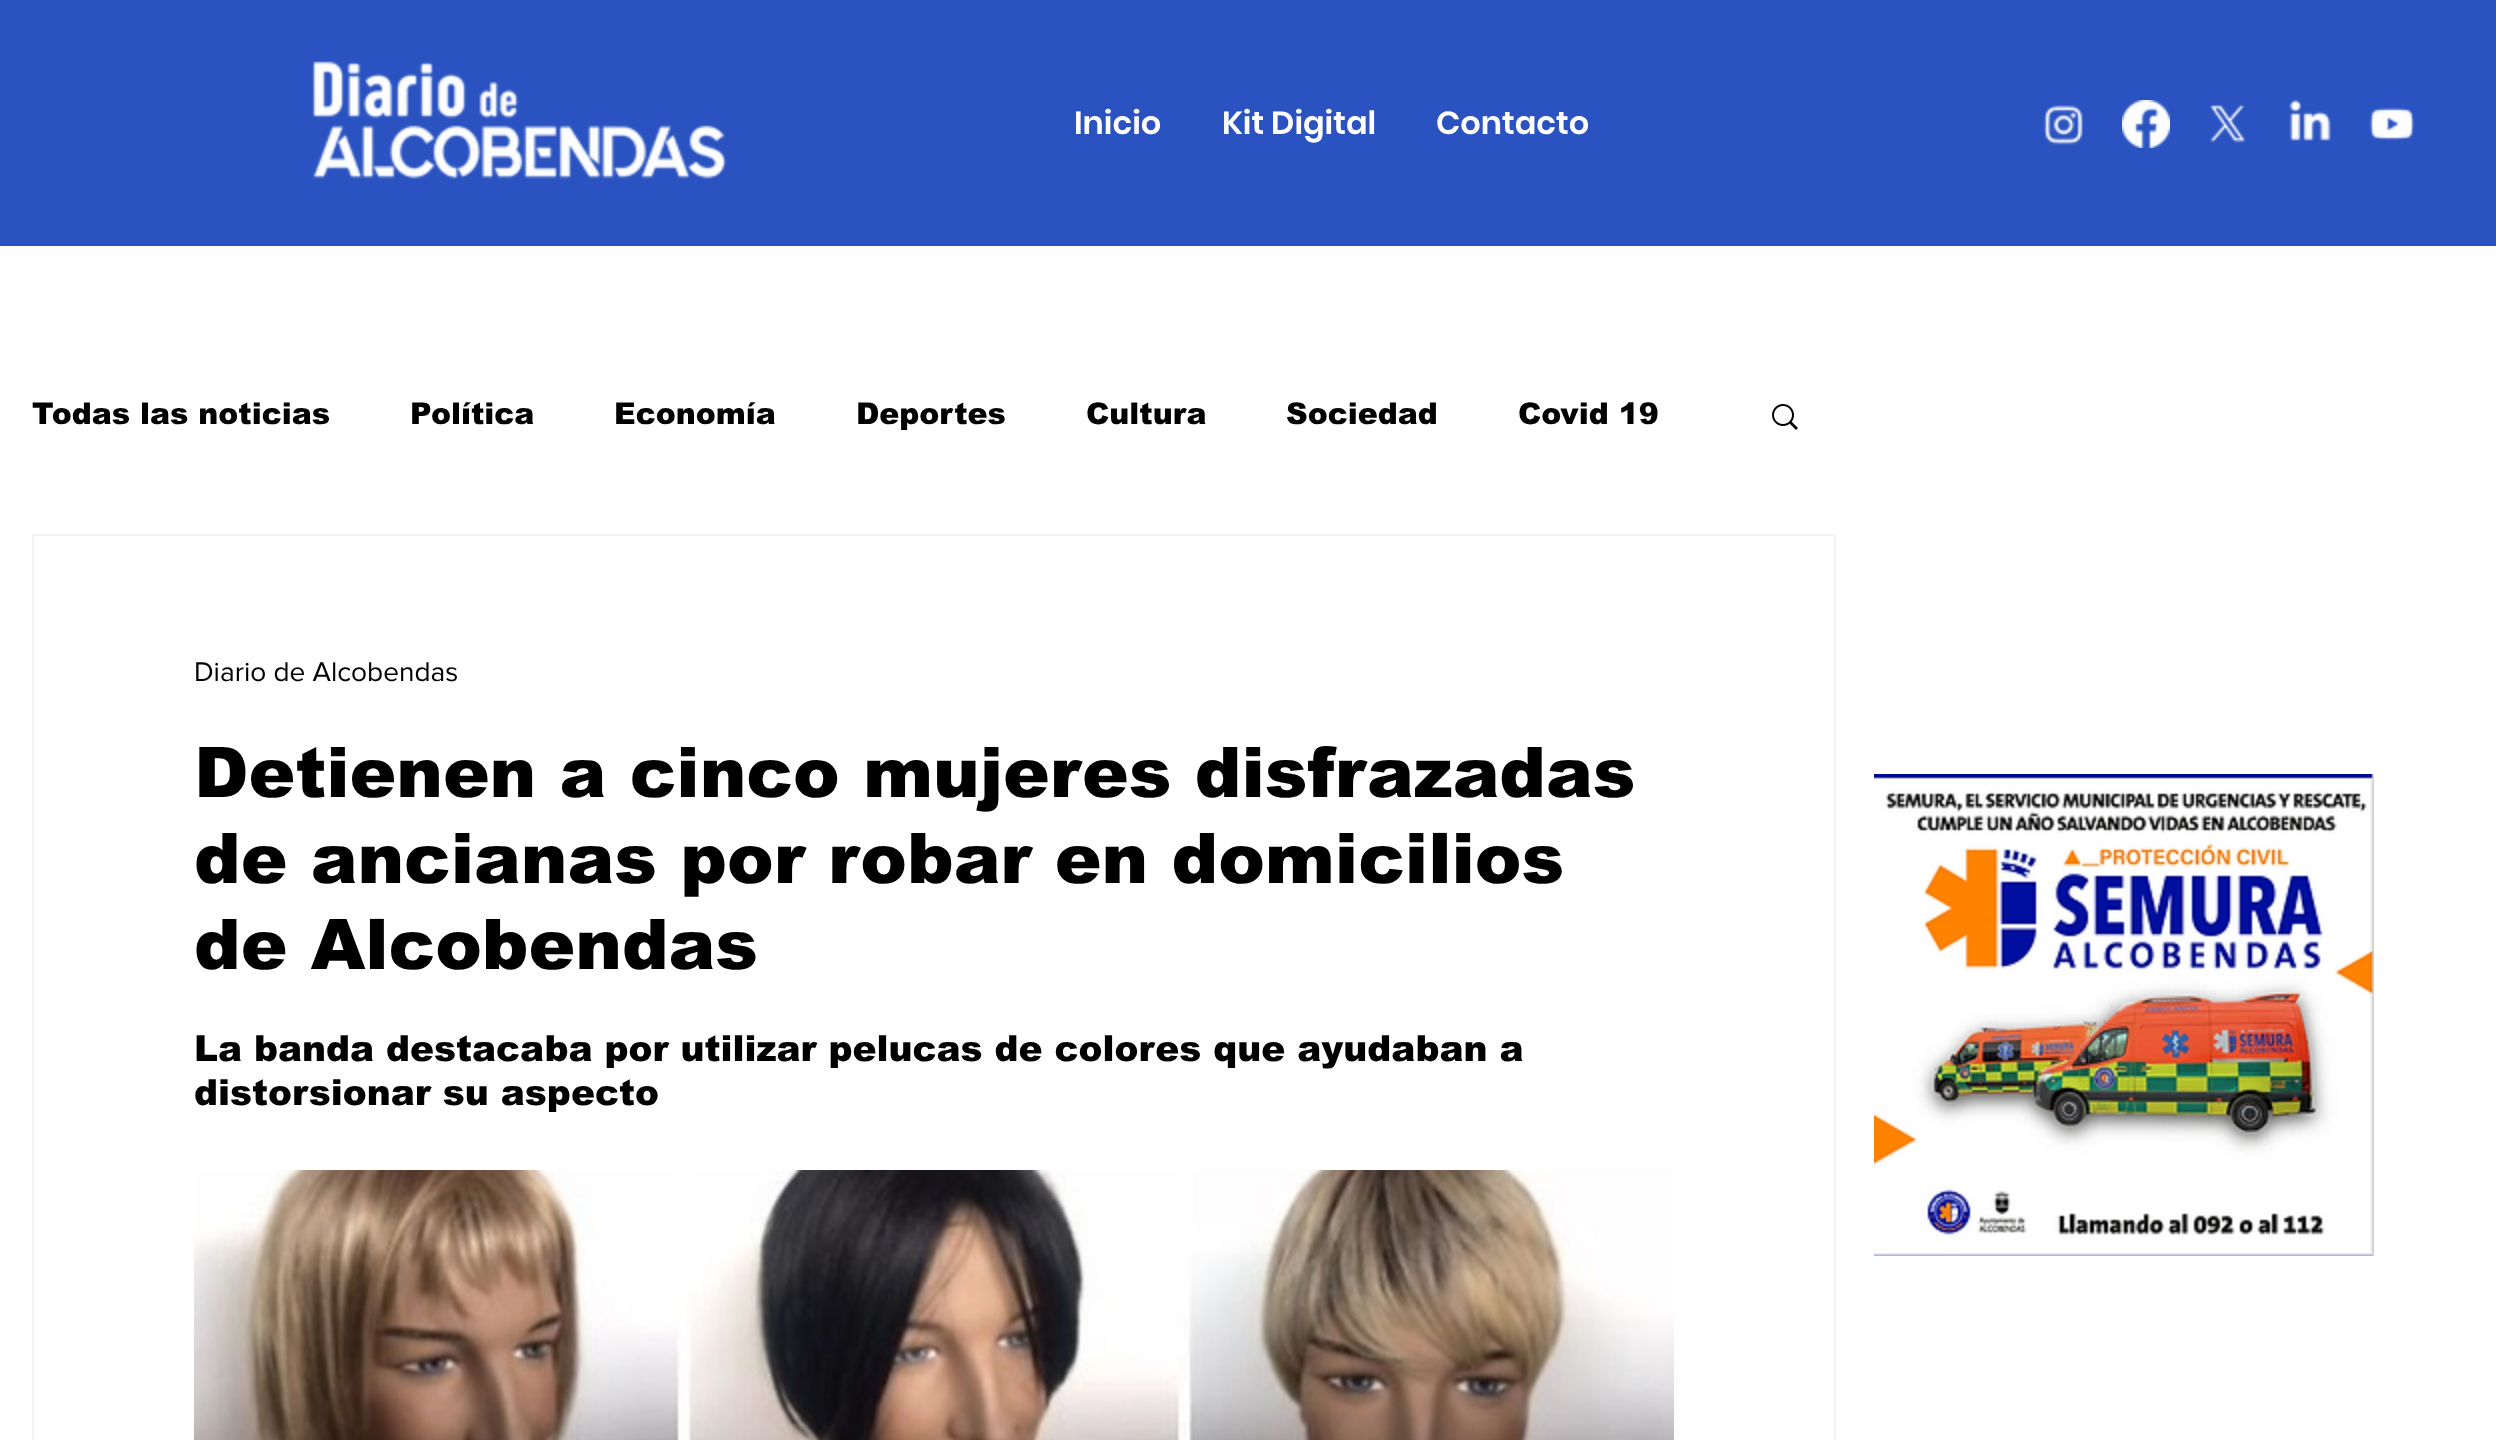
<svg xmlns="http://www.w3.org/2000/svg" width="2496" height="1440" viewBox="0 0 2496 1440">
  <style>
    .t1 { font: 600 32px Poppins; fill: #fff; }
    .t2 { font: 900 30px arial; fill: #000; }
    .t3 { font: 28px 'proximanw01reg'; fill: #000; }
    .t4 { font: 900 70px arial; fill: #000; }
    .t5 { font: 900 36px arial; fill: #000; }
  </style>
  <rect width="100%" height="100%" fill="#fff"/>
  <rect x="0" y="0" width="2496" height="246" fill="#2a53c1"/>
  <image x="312" y="61" width="415" height="118" href="images/1.png"/>
  <text x="1074" y="134" class="t1">Inicio</text>
  <text x="1222" y="134" class="t1">Kit Digital</text>
  <text x="1436" y="134" class="t1">Contacto</text>
  <image x="2043" y="105" width="40" height="40" href="images/2.png"/>
  <image x="2122" y="100" width="48" height="48" href="images/3.png"/>
  <image x="2209" y="104" width="37" height="39" href="images/4.png"/>
  <image x="2289" y="100" width="42" height="41" href="images/5.png"/>
  <image x="2369" y="107" width="46" height="34" href="images/6.png"/>
  <text x="32" y="424" class="t2">Todas las noticias</text>
  <text x="410" y="424" class="t2">Política</text>
  <text x="614" y="424" class="t2">Economía</text>
  <text x="856" y="424" class="t2">Deportes</text>
  <text x="1086" y="424" class="t2">Cultura</text>
  <text x="1286" y="424" class="t2">Sociedad</text>
  <text x="1518" y="424" class="t2">Covid 19</text>
  <image x="1772" y="404" width="26" height="26" href="images/7.png"/>
  <rect x="33" y="535" width="1802" height="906" fill="none" stroke="#f5f5f5" stroke-width="2"/>
  <text x="194" y="681" class="t3">Diario de Alcobendas</text>
  <text x="194" y="797" class="t4">Detienen a cinco mujeres disfrazadas</text>
  <text x="194" y="883" class="t4">de ancianas por robar en domicilios</text>
  <text x="194" y="969" class="t4">de Alcobendas</text>
  <text x="194" y="1061" class="t5">La banda destacaba por utilizar pelucas de colores que ayudaban a</text>
  <text x="194" y="1105" class="t5">distorsionar su aspecto</text>
  <image x="194" y="1170" width="1480" height="270" href="images/8.png"/>
  <image x="1874" y="774" width="500" height="482" href="images/9.png"/>
</svg>
